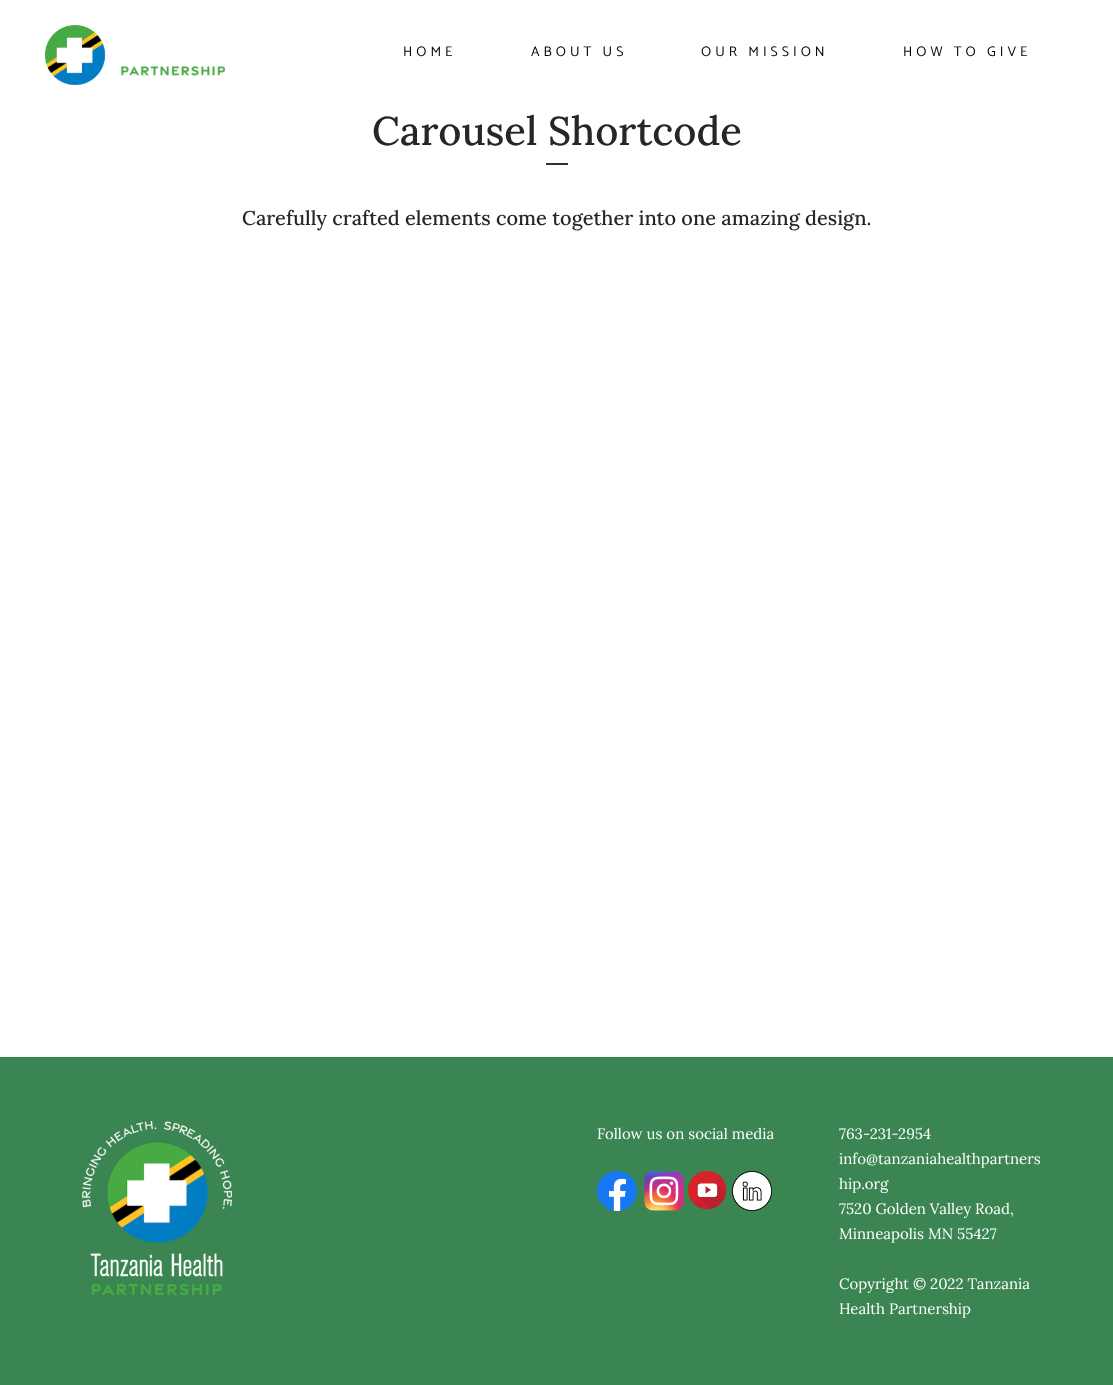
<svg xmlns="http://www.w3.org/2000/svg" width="1113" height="1385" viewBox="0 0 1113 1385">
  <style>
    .t1 { font: 14px Catamaran; letter-spacing: 4px; fill: #000; }
    .t2 { font: 500 40px Lora; fill: #262626; }
    .t3 { font: 500 20px Lora; fill: #262626; }
    .t4 { font: 15px Lora; fill: #fff; }
  </style>
  <rect width="100%" height="100%" fill="#fff"/>
  <image x="45" y="25" width="180" height="60" href="images/1.png"/>
  <text x="403" y="56" class="t1">HOME</text>
  <text x="531" y="56" class="t1">ABOUT US</text>
  <text x="701" y="56" class="t1">OUR MISSION</text>
  <text x="903" y="56" class="t1">HOW TO GIVE</text>
  <text x="372" y="145" class="t2">Carousel Shortcode</text>
  <rect x="546" y="163" width="22" height="2" fill="#303030"/>
  <text x="242" y="225" class="t3">Carefully crafted elements come together into one amazing design.</text>
  <rect x="0" y="1057" width="1113" height="328" fill="#3a8551"/>
  <image x="82" y="1121" width="150" height="174" href="images/2.png"/>
  <text x="597" y="1139" class="t4">Follow us on social media</text>
  <image x="597" y="1171" width="40" height="40" href="images/3.png"/>
  <image x="644" y="1171" width="40" height="40" href="images/4.png"/>
  <image x="688" y="1171" width="39" height="39" href="images/5.png"/>
  <image x="732" y="1171" width="40" height="40" href="images/6.png"/>
  <text x="839" y="1139" class="t4">763-231-2954</text>
  <text x="839" y="1164" class="t4">info@tanzaniahealthpartners</text>
  <text x="839" y="1189" class="t4">hip.org</text>
  <text x="839" y="1214" class="t4">7520 Golden Valley Road,</text>
  <text x="839" y="1239" class="t4">Minneapolis MN 55427</text>
  <text x="839" y="1289" class="t4">Copyright © 2022 Tanzania</text>
  <text x="839" y="1314" class="t4">Health Partnership</text>
</svg>
